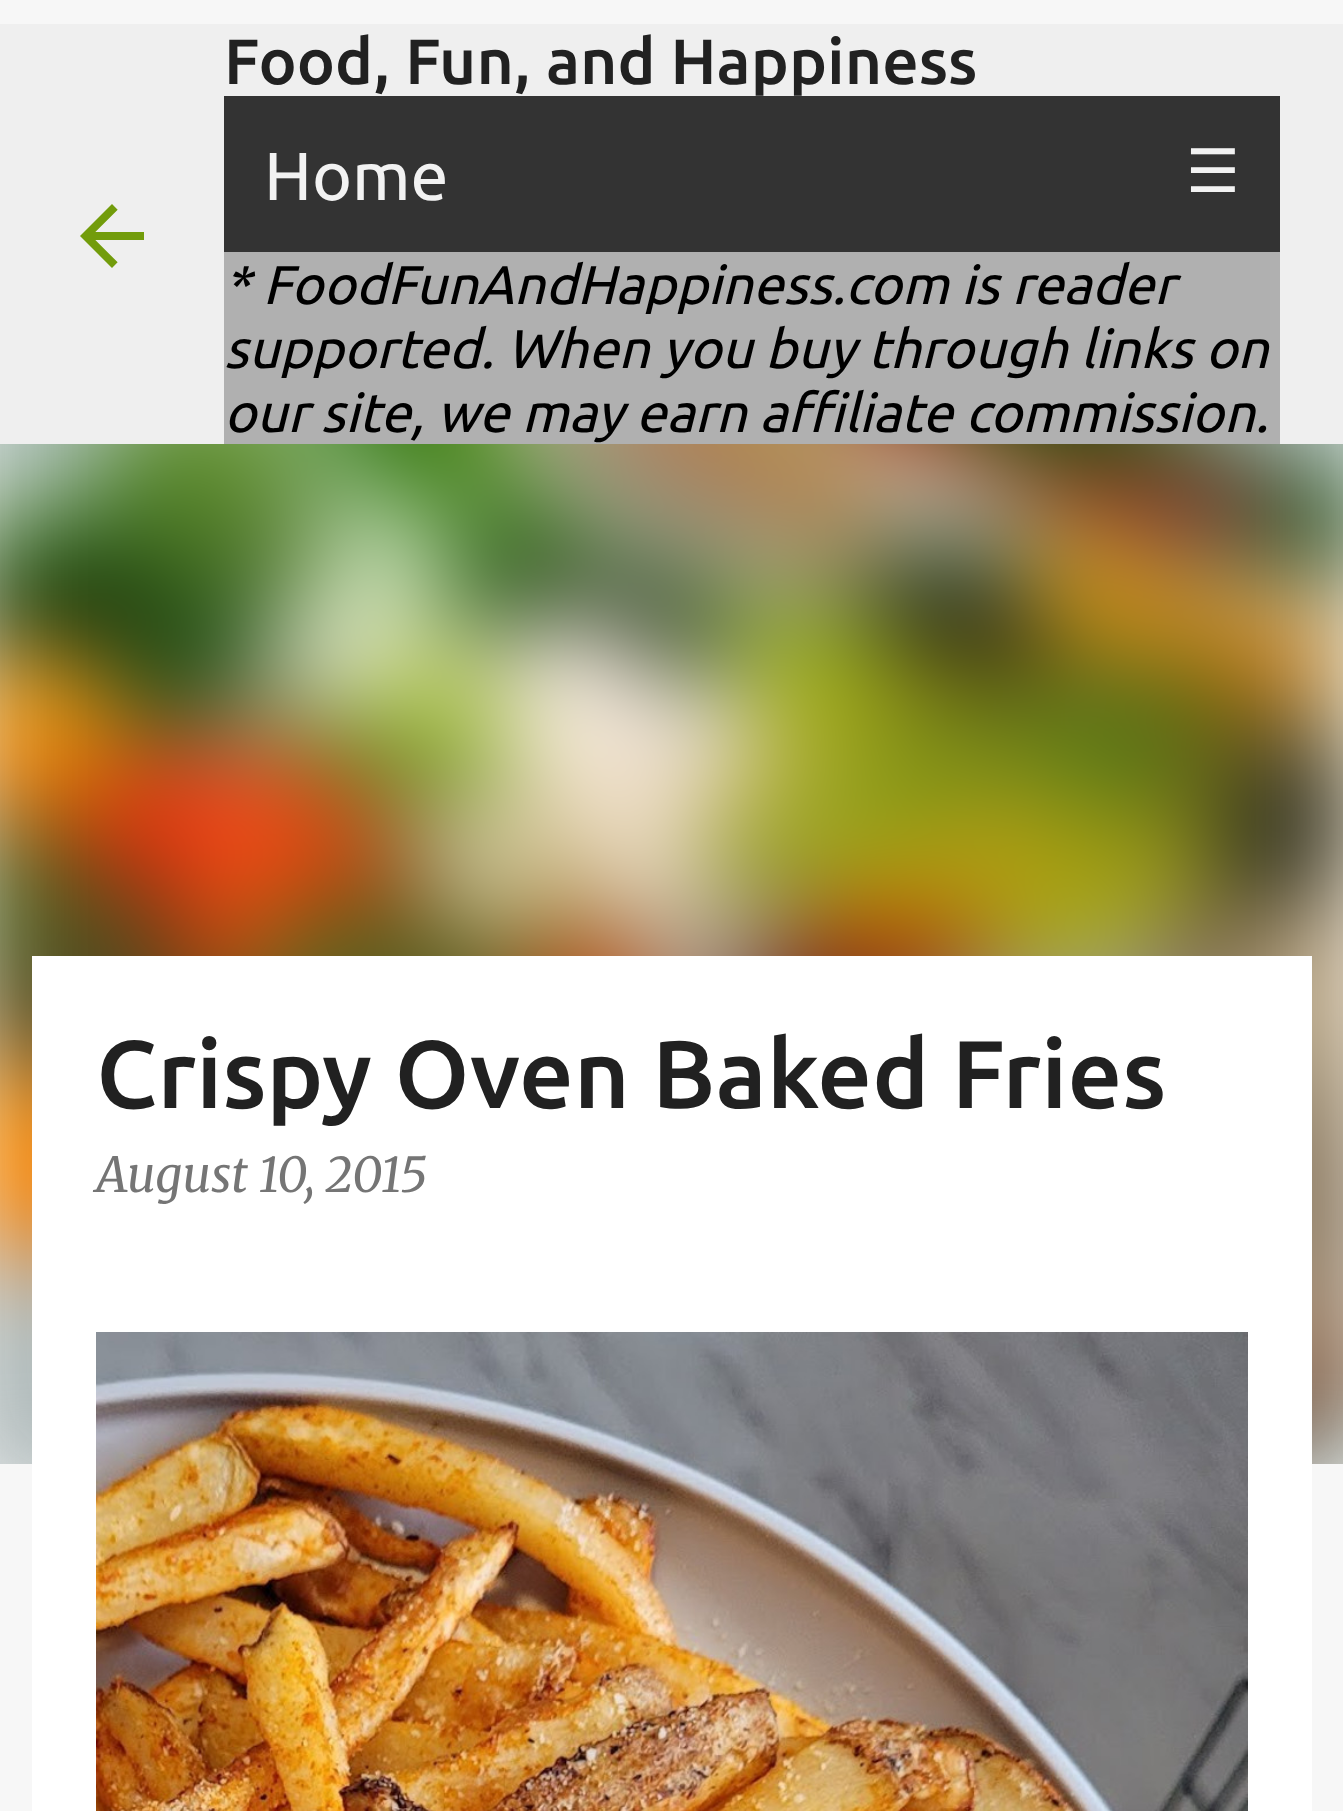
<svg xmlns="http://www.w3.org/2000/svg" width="1343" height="1811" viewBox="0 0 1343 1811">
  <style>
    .t1 { font: 500 64px Ubuntu; fill: #212121; }
    .t2 { font: 68px Ubuntu; fill: #f2f2f2; }
    .t3 { font: 60px DejaVu Sans; fill: #f2f2f2; }
    .t4 { font: italic 54.4px Ubuntu; fill: #000; }
    .t5 { font: 500 96px Ubuntu; fill: #212121; }
    .t6 { font: italic 48px Merriweather; fill: #757575; }
  </style>
  <rect width="100%" height="100%" fill="#f7f7f7"/>
  <rect x="0" y="24" width="1343" height="420" fill="#efefef"/>
  <image x="80" y="204" width="64" height="64" href="images/1.png"/>
  <text x="224" y="84" class="t1">Food, Fun, and Happiness</text>
  <rect x="224" y="96" width="1056" height="156" fill="#333"/>
  <text x="264" y="200" class="t2">Home</text>
  <text x="1186" y="192" class="t3">☰</text>
  <rect x="224" y="252" width="1056" height="192" fill="#b0b0b0"/>
  <text x="224" y="304" class="t4">* FoodFunAndHappiness.com is reader</text>
  <text x="224" y="368" class="t4">supported. When you buy through links on</text>
  <text x="224" y="432" class="t4">our site, we may earn affiliate commission.</text>
  <image x="0" y="444" width="1343" height="1020" href="images/3.png"/>
  <rect x="32" y="956" width="1280" height="855" fill="#fff"/>
  <text x="96" y="1108" class="t5">Crispy Oven Baked Fries</text>
  <text x="96" y="1192" class="t6">August 10, 2015</text>
  <image x="96" y="1332" width="1152" height="479" href="images/2.png"/>
</svg>
